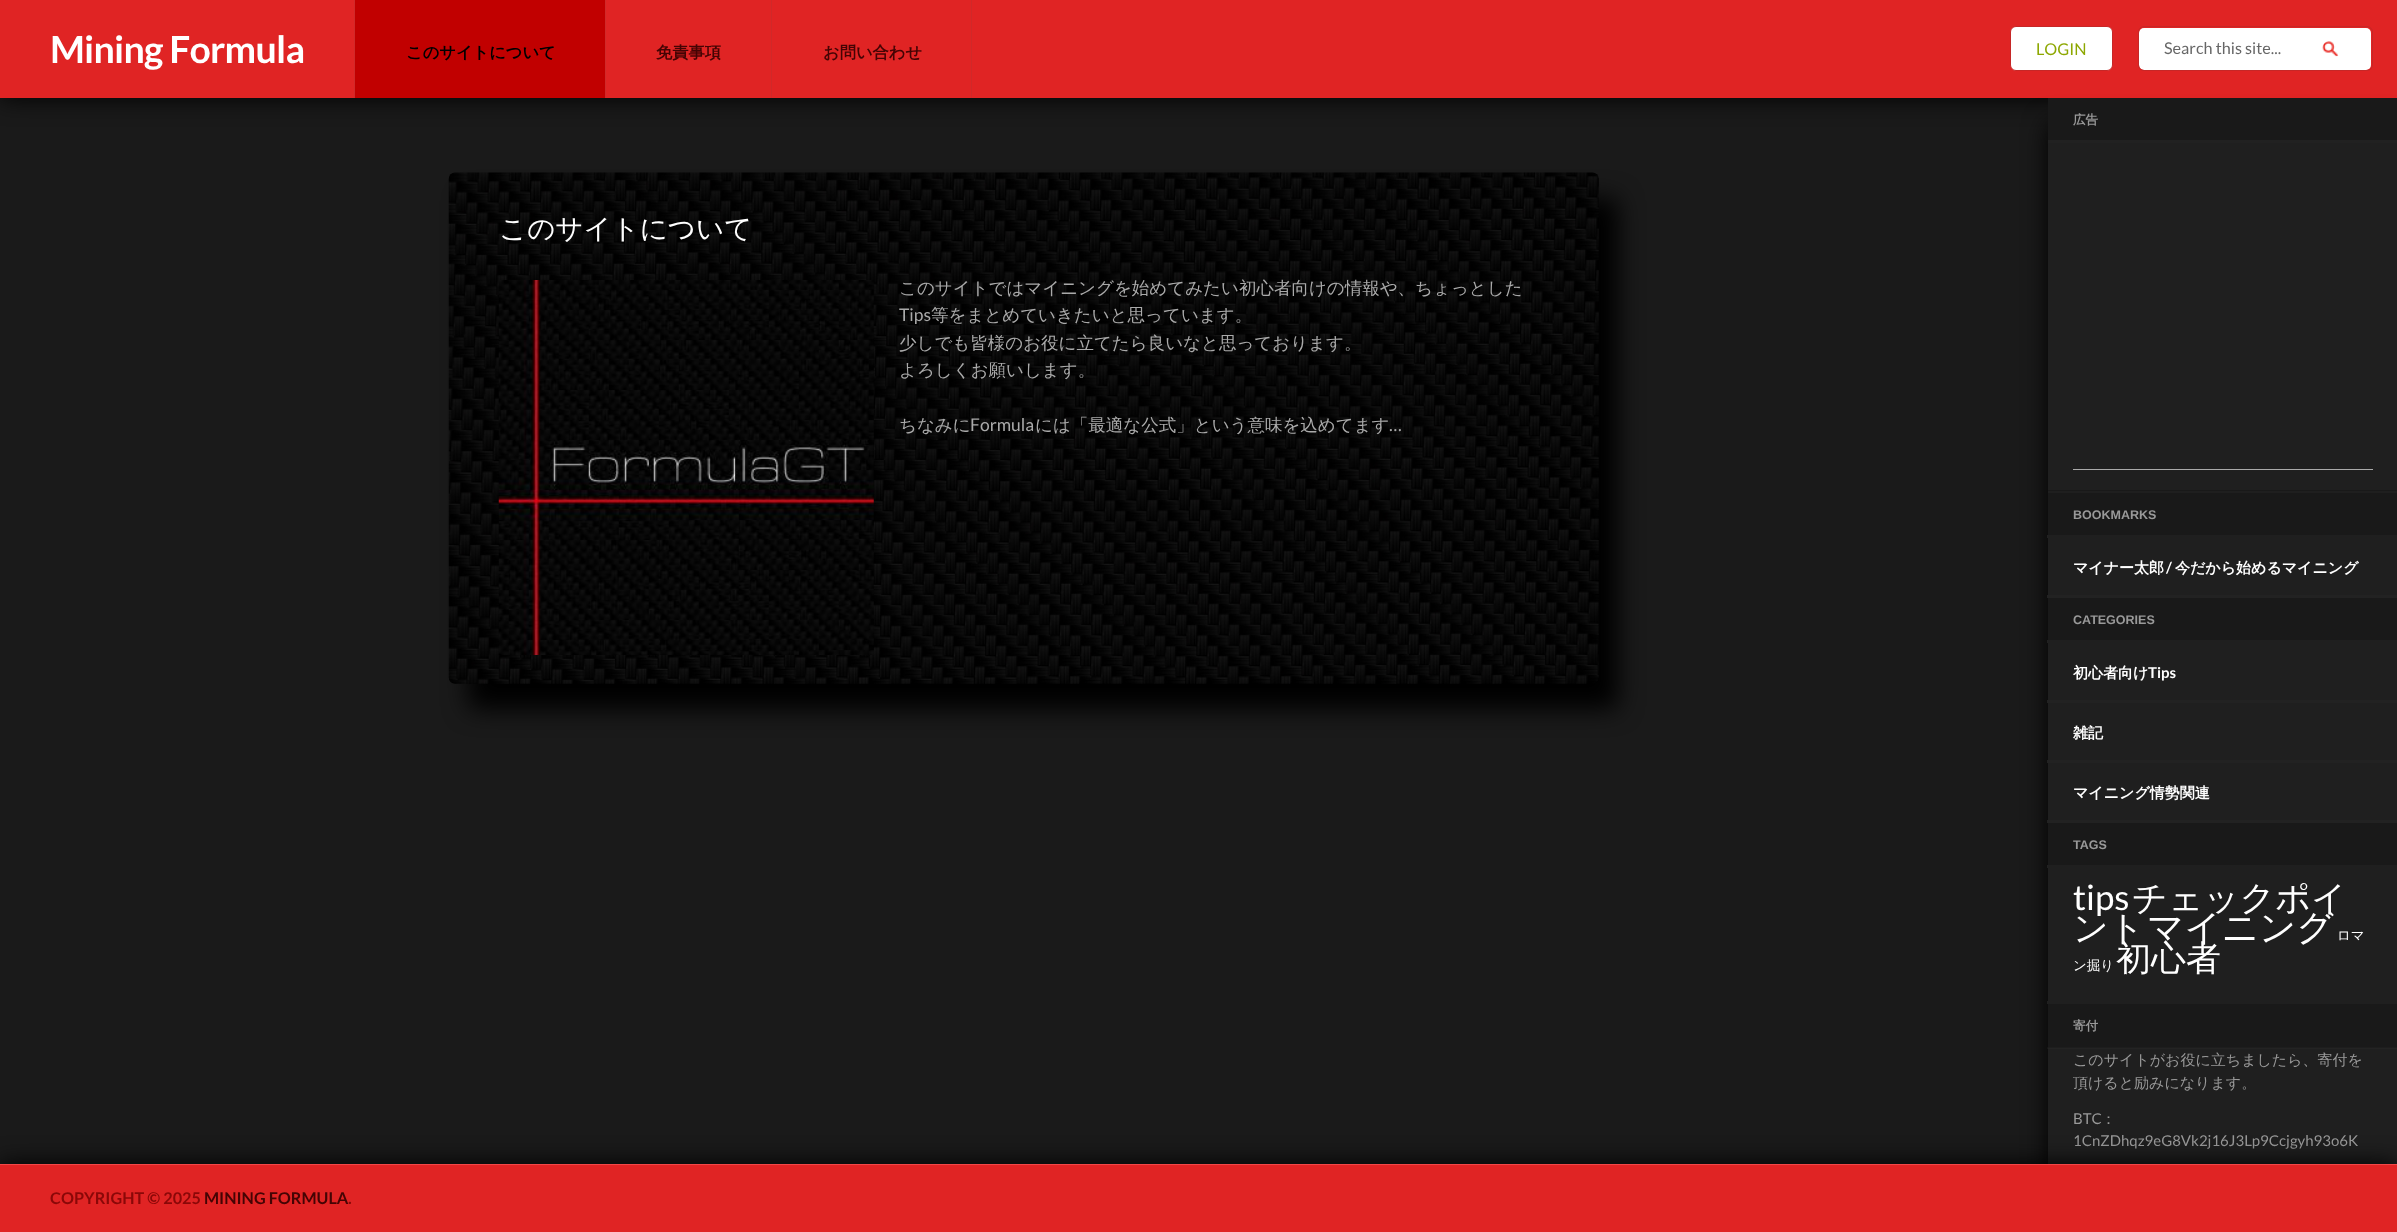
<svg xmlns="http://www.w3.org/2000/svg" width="2397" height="1232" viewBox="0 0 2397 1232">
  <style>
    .t1 { font: bold 37.5px Lato; letter-spacing: -0.75px; fill: #fff; }
    .t2 { font: bold 16.25px WenQuanYi Zen Hei; fill: #000; }
    .t3 { font: bold 16.25px WenQuanYi Zen Hei; fill: #440404; }
    .t4 { font: 16.25px Lato; fill: #8da701; }
    .t5 { font: 16.25px Lato; fill: #666; }
    .t6 { font: 500 27.5px WenQuanYi Zen Hei; fill: #fff; }
    .t7 { font: 500 17.5px WenQuanYi Zen Hei; fill: #aaa; }
    .t8 { font: 17.5px Lato; fill: #aaa; }
    .t9 { font: bold 12.5px WenQuanYi Zen Hei; fill: #999; }
    .t10 { font: bold 12.5px Liberation Sans; fill: #999; }
    .t11 { font: bold 15px WenQuanYi Zen Hei; fill: #fff; }
    .t12 { font: bold 15px Lato; fill: #fff; }
    .t13 { font: 35px Lato; fill: #fff; }
    .t14 { font: 500 35px WenQuanYi Zen Hei; fill: #fff; }
    .t15 { font: 500 36.5px WenQuanYi Zen Hei; fill: #fff; }
    .t16 { font: 500 13.5px WenQuanYi Zen Hei; fill: #fff; }
    .t17 { font: 500 15px WenQuanYi Zen Hei; fill: #999; }
    .t18 { font: 15px Lato; fill: #999; }
    .t19 { font: bold 16.25px Lato; fill: #8a0808; }
    .t20 { font: bold 16.25px Lato; fill: #440404; }
  </style>
  <rect width="100%" height="100%" fill="#1a1a1a"/>
  <rect x="0" y="0" width="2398" height="98" fill="#000" filter="blur(12.5px)"/>
  <rect x="0" y="0" width="2397" height="98" fill="#e02424"/>
  <rect x="354" y="0" width="1" height="98" fill="#d02929"/>
  <text x="50" y="63" class="t1">Mining Formula</text>
  <rect x="355" y="0" width="250" height="98" fill="#c10000"/>
  <rect x="605" y="0" width="1" height="98" fill="#d02929"/>
  <text x="406" y="58" class="t2">このサイトについて</text>
  <rect x="771" y="0" width="1" height="98" fill="#d02929"/>
  <text x="656" y="58" class="t3">免責事項</text>
  <rect x="971" y="0" width="1" height="98" fill="#d02929"/>
  <text x="823" y="58" class="t3">お問い合わせ</text>
  <rect x="2010.5" y="26.5" width="102" height="44" rx="5.5" fill="#fff" stroke="#c62727"/>
  <text x="2036" y="55" class="t4">LOGIN</text>
  <rect x="2139" y="28" width="232" height="42" rx="5" fill="#fff"/>
  <rect x="2138.5" y="26.5" width="234" height="44" rx="5.5" fill="none" stroke="#c62727"/>
  <text x="2164" y="54" class="t5">Search this site...</text>
  <image x="2322" y="41" width="17" height="16" href="images/1.png"/>
  <rect x="468" y="198" width="1150" height="511" rx="6" fill="#000" filter="blur(12.5px)"/>
  <image x="448" y="172" width="1151" height="512" href="images/2.png"/>
  <text x="499" y="238" class="t6">このサイトについて</text>
  <image x="498" y="280" width="376" height="375" href="images/3.png"/>
  <text x="899" y="294" class="t7">このサイトではマイニングを始めてみたい初心者向けの情報や、ちょっとした</text>
  <text x="899" y="321" class="t8">Tips</text>
  <text x="931" y="321" class="t7">等をまとめていきたいと思っています。</text>
  <text x="899" y="349" class="t7">少しでも皆様のお役に立てたら良いなと思っております。</text>
  <text x="899" y="376" class="t7">よろしくお願いします。</text>
  <text x="899" y="431" class="t7">ちなみに</text>
  <text x="970" y="431" class="t8">Formula</text>
  <text x="1035" y="431" class="t7">には「最適な公式」という意味を込めてます</text>
  <text x="1389" y="431" class="t8">…</text>
  <rect x="2048" y="123" width="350" height="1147" fill="#000" filter="blur(12.5px)"/>
  <rect x="2048" y="143" width="349" height="1021" fill="#1f1f1f"/>
  <rect x="2048" y="98" width="349" height="42" fill="#191919"/>
  <rect x="2048" y="140" width="349" height="3" fill="#212121"/>
  <text x="2073" y="124" class="t9">広告</text>
  <rect x="2048" y="490" width="349" height="1" fill="#191919"/>
  <rect x="2073" y="469" width="300" height="1" fill="#aaa"/>
  <rect x="2048" y="493" width="349" height="42" fill="#191919"/>
  <rect x="2047" y="535" width="1" height="3" fill="#212121"/>
  <text x="2073" y="519" class="t10">BOOKMARKS</text>
  <rect x="2047" y="595" width="350" height="3" fill="#222"/>
  <text x="2073" y="573" class="t11">マイナー太郎</text>
  <text x="2166" y="573" class="t12">/</text>
  <text x="2175" y="573" class="t11">今だから始めるマイニング</text>
  <rect x="2048" y="598" width="349" height="42" fill="#191919"/>
  <rect x="2047" y="640" width="1" height="3" fill="#212121"/>
  <text x="2073" y="624" class="t10">CATEGORIES</text>
  <rect x="2047" y="700" width="350" height="3" fill="#222"/>
  <text x="2073" y="678" class="t11">初心者向け</text>
  <text x="2148" y="678" class="t12">Tips</text>
  <rect x="2047" y="760" width="350" height="3" fill="#222"/>
  <text x="2073" y="738" class="t11">雑記</text>
  <rect x="2047" y="820" width="350" height="3" fill="#222"/>
  <text x="2073" y="798" class="t11">マイニング情勢関連</text>
  <rect x="2048" y="823" width="349" height="42" fill="#191919"/>
  <rect x="2047" y="865" width="1" height="3" fill="#212121"/>
  <text x="2073" y="849" class="t10">TAGS</text>
  <rect x="2047" y="1001" width="1" height="3" fill="#202020"/>
  <text x="2073" y="910" class="t13">tips</text>
  <text x="2132" y="910" class="t14">チェックポイ</text>
  <text x="2073" y="940" class="t14">ント</text>
  <text x="2147" y="940" class="t15">マイニング</text>
  <text x="2337" y="940" class="t16">ロマ</text>
  <text x="2073" y="970" class="t16">ン掘り</text>
  <text x="2116" y="970" class="t14">初心者</text>
  <rect x="2048" y="1004" width="349" height="45" fill="#191919"/>
  <image x="2047" y="1047" width="350" height="2" href="images/4.png"/>
  <text x="2073" y="1030" class="t9">寄付</text>
  <text x="2073" y="1065" class="t17">このサイトがお役に立ちましたら、寄付を</text>
  <text x="2073" y="1088" class="t17">頂けると励みになります。</text>
  <text x="2073" y="1124" class="t18">BTC</text>
  <text x="2101" y="1124" class="t17">：</text>
  <text x="2073" y="1146" class="t18">1CnZDhqz9eG8Vk2j16J3Lp9Ccjgyh93o6K</text>
  <rect x="0" y="1164" width="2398" height="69" fill="#000" filter="blur(12.5px)"/>
  <rect x="0" y="1165" width="2397" height="67" fill="#e02424"/>
  <rect x="0" y="1164" width="2397" height="1" fill="#f34747"/>
  <text x="50" y="1204" class="t19">COPYRIGHT © 2025</text>
  <text x="204" y="1204" class="t20">MINING FORMULA</text>
  <text x="348" y="1204" class="t19">.</text>
</svg>
